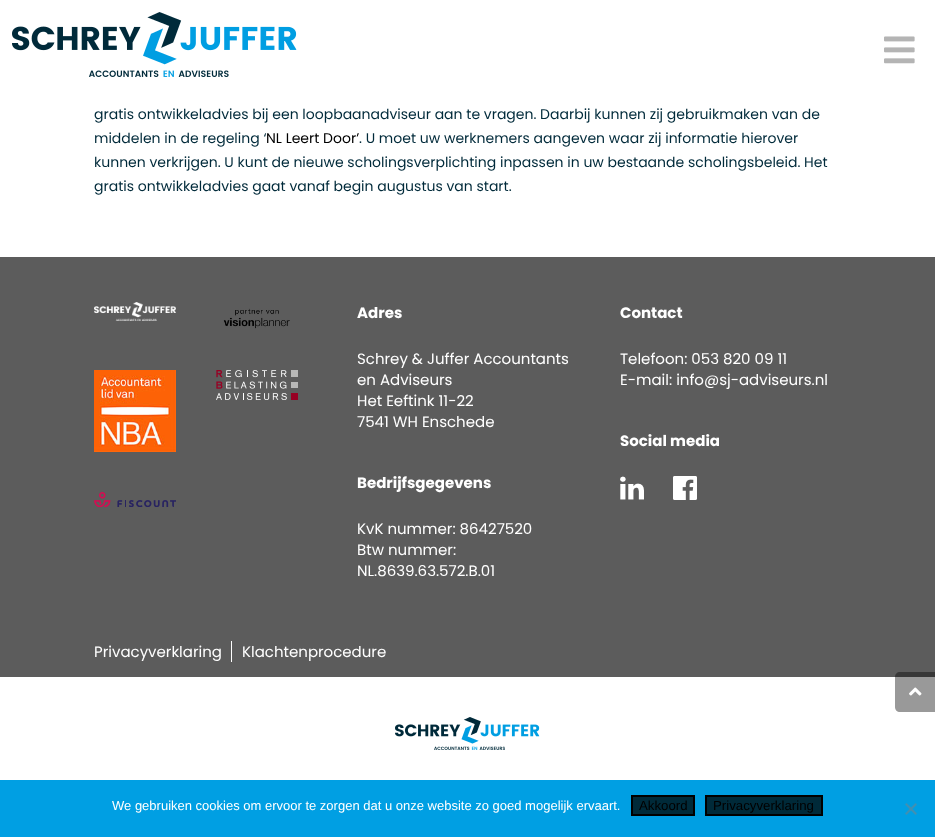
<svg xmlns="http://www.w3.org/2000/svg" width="935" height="837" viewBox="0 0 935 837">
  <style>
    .t1 { font: 14px Poppins; fill: #002a3a; }
    .t2 { font: 14px Poppins; fill: #000; }
    .t3 { font: bold 15px Poppins; fill: #fff; }
    .t4 { font: 15px Poppins; fill: #fff; }
    .t5 { font: 13px Liberation Sans; fill: #fff; }
    .t6 { font: 13.25px Liberation Sans; fill: #000; }
  </style>
  <rect width="100%" height="100%" fill="#fff"/>
  <image x="12" y="12" width="285" height="65" href="images/1.png"/>
  <image x="884" y="36" width="31" height="28" href="images/2.png"/>
  <text x="94" y="119" class="t1">gratis ontwikkeladvies bij een loopbaanadviseur aan te vragen. Daarbij kunnen zij gebruikmaken van de</text>
  <text x="94" y="143" class="t1">middelen in de regeling ‘</text>
  <text x="266" y="143" class="t2">NL Leert Door’</text>
  <text x="359" y="143" class="t1">. U moet uw werknemers aangeven waar zij informatie hierover</text>
  <text x="94" y="167" class="t1">kunnen verkrijgen. U kunt de nieuwe scholingsverplichting inpassen in uw bestaande scholingsbeleid. Het</text>
  <text x="94" y="191" class="t1">gratis ontwikkeladvies gaat vanaf begin augustus van start.</text>
  <rect x="0" y="257" width="935" height="420" fill="#5c5c5c"/>
  <image x="94" y="302" width="82" height="19" href="images/3.png"/>
  <image x="223" y="308" width="67" height="21" href="images/4.png"/>
  <image x="94" y="370" width="82" height="82" href="images/5.png"/>
  <image x="216" y="370" width="82" height="30" href="images/6.png"/>
  <image x="94" y="492" width="82" height="15" href="images/7.png"/>
  <text x="357" y="318" class="t3">Adres</text>
  <text x="357" y="364" class="t4">Schrey &amp; Juffer Accountants</text>
  <text x="357" y="385" class="t4">en Adviseurs</text>
  <text x="357" y="406" class="t4">Het Eeftink 11-22</text>
  <text x="357" y="427" class="t4">7541 WH Enschede</text>
  <text x="357" y="488" class="t3">Bedrijfsgegevens</text>
  <text x="357" y="534" class="t4">KvK nummer: 86427520</text>
  <text x="357" y="555" class="t4">Btw nummer:</text>
  <text x="357" y="576" class="t4">NL.8639.63.572.B.01</text>
  <text x="620" y="318" class="t3">Contact</text>
  <text x="620" y="364" class="t4">Telefoon: 053 820 09 11</text>
  <text x="620" y="385" class="t4">E-mail: info@sj-adviseurs.nl</text>
  <text x="620" y="446" class="t3">Social media</text>
  <image x="620" y="476" width="24" height="24" href="images/8.png"/>
  <image x="673" y="476" width="24" height="24" href="images/9.png"/>
  <rect x="231" y="641" width="1" height="21" fill="#fff"/>
  <text x="94" y="657" class="t4">Privacyverklaring</text>
  <text x="242" y="657" class="t4">Klachtenprocedure</text>
  <image x="395" y="717" width="145" height="33" href="images/10.png"/>
  <path d="M900 672H935V712H900C897 712 895 710 895 707V677C895 674 897 672 900 672Z" fill="#00000066"/>
  <image x="909" y="687" width="13" height="9" href="images/11.png"/>
  <rect x="0" y="780" width="935" height="57" fill="#009fe3"/>
  <text x="112" y="810" class="t5">We gebruiken cookies om ervoor te zorgen dat u onze website zo goed mogelijk ervaart.</text>
  <rect x="632" y="796" width="62" height="19" fill="#002a39" stroke="#000" stroke-width="2"/>
  <text x="639" y="810" class="t6">Akkoord</text>
  <rect x="706" y="796" width="116" height="19" fill="#002a39" stroke="#000" stroke-width="2"/>
  <text x="713" y="810" class="t6">Privacyverklaring</text>
  <path d="M915.5 803L917 804.5L906.5 815L905 813.5Z" fill="#4090b2"/>
  <path d="M905 804.5L906.5 803L917 813.5L915.5 815Z" fill="#4090b2"/>
</svg>
